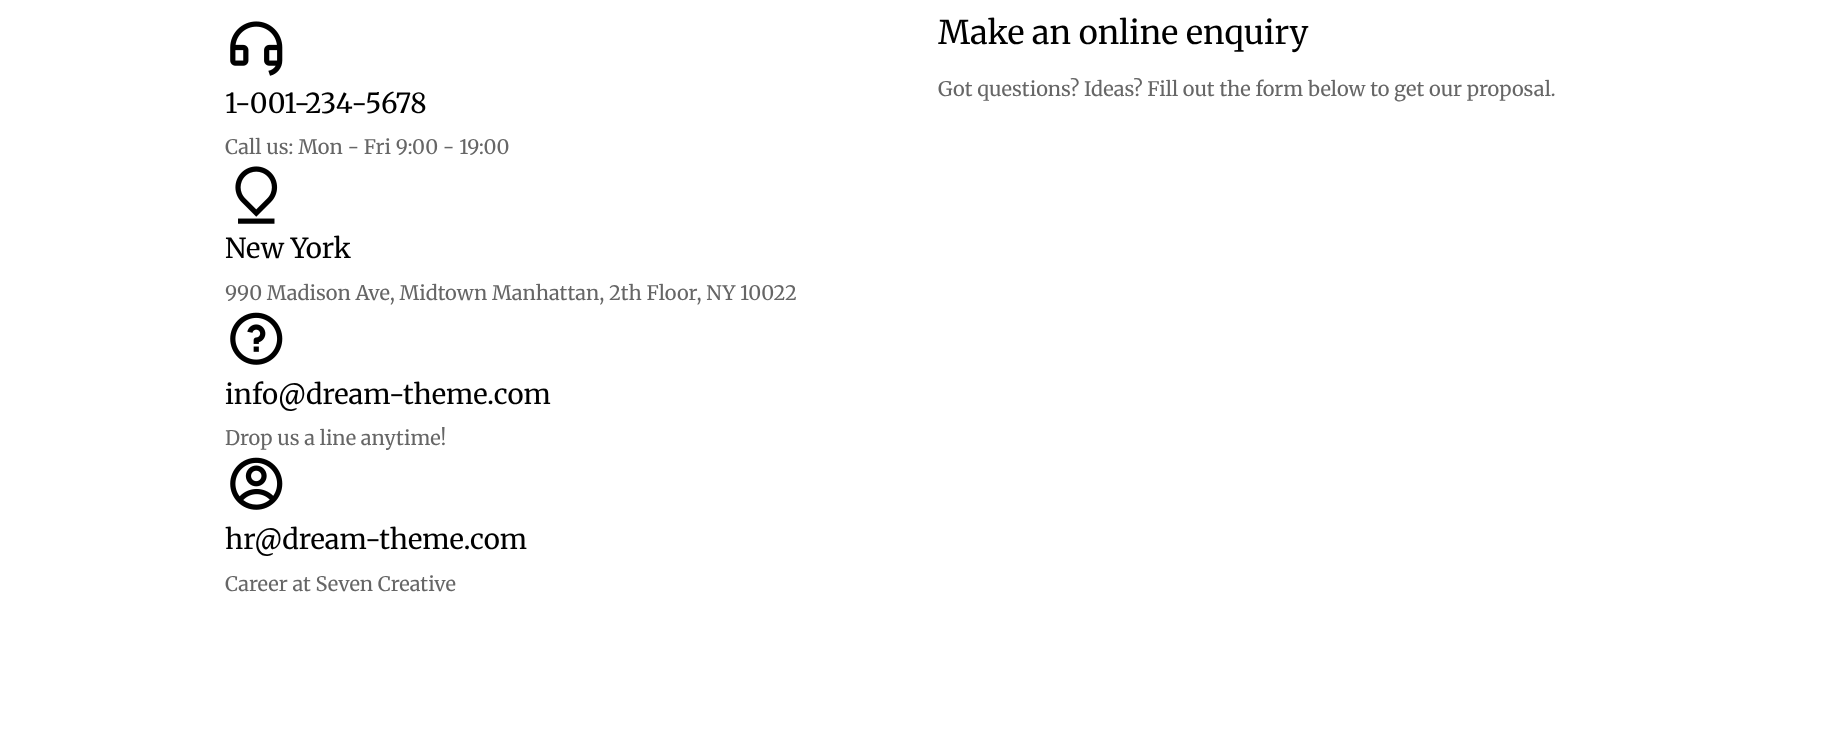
<svg xmlns="http://www.w3.org/2000/svg" width="1825" height="746" viewBox="0 0 1825 746">
  <style>
    .t1 { font: 32.5px Merriweather; fill: #000; }
    .t2 { font: 20px Merriweather; fill: #666; }
    .t3 { font: 27.5px Merriweather; fill: #000; }
  </style>
  <rect width="100%" height="100%" fill="#fff"/>
  <text x="938" y="44" class="t1">Make an online enquiry</text>
  <text x="938" y="96" class="t2">Got questions? Ideas? Fill out the form below to get our proposal.</text>
  <image x="230" y="21" width="53" height="55" href="images/1.png"/>
  <text x="225" y="113" class="t3">1-001-234-5678</text>
  <text x="225" y="154" class="t2">Call us: Mon - Fri 9:00 - 19:00</text>
  <image x="235" y="166" width="43" height="58" href="images/2.png"/>
  <text x="225" y="258" class="t3">New York</text>
  <text x="225" y="300" class="t2">990 Madison Ave, Midtown Manhattan, 2th Floor, NY 10022</text>
  <image x="230" y="312" width="53" height="53" href="images/3.png"/>
  <text x="225" y="404" class="t3">info@dream-theme.com</text>
  <text x="225" y="445" class="t2">Drop us a line anytime!</text>
  <image x="230" y="457" width="53" height="53" href="images/4.png"/>
  <text x="225" y="549" class="t3">hr@dream-theme.com</text>
  <text x="225" y="591" class="t2">Career at Seven Creative</text>
</svg>
